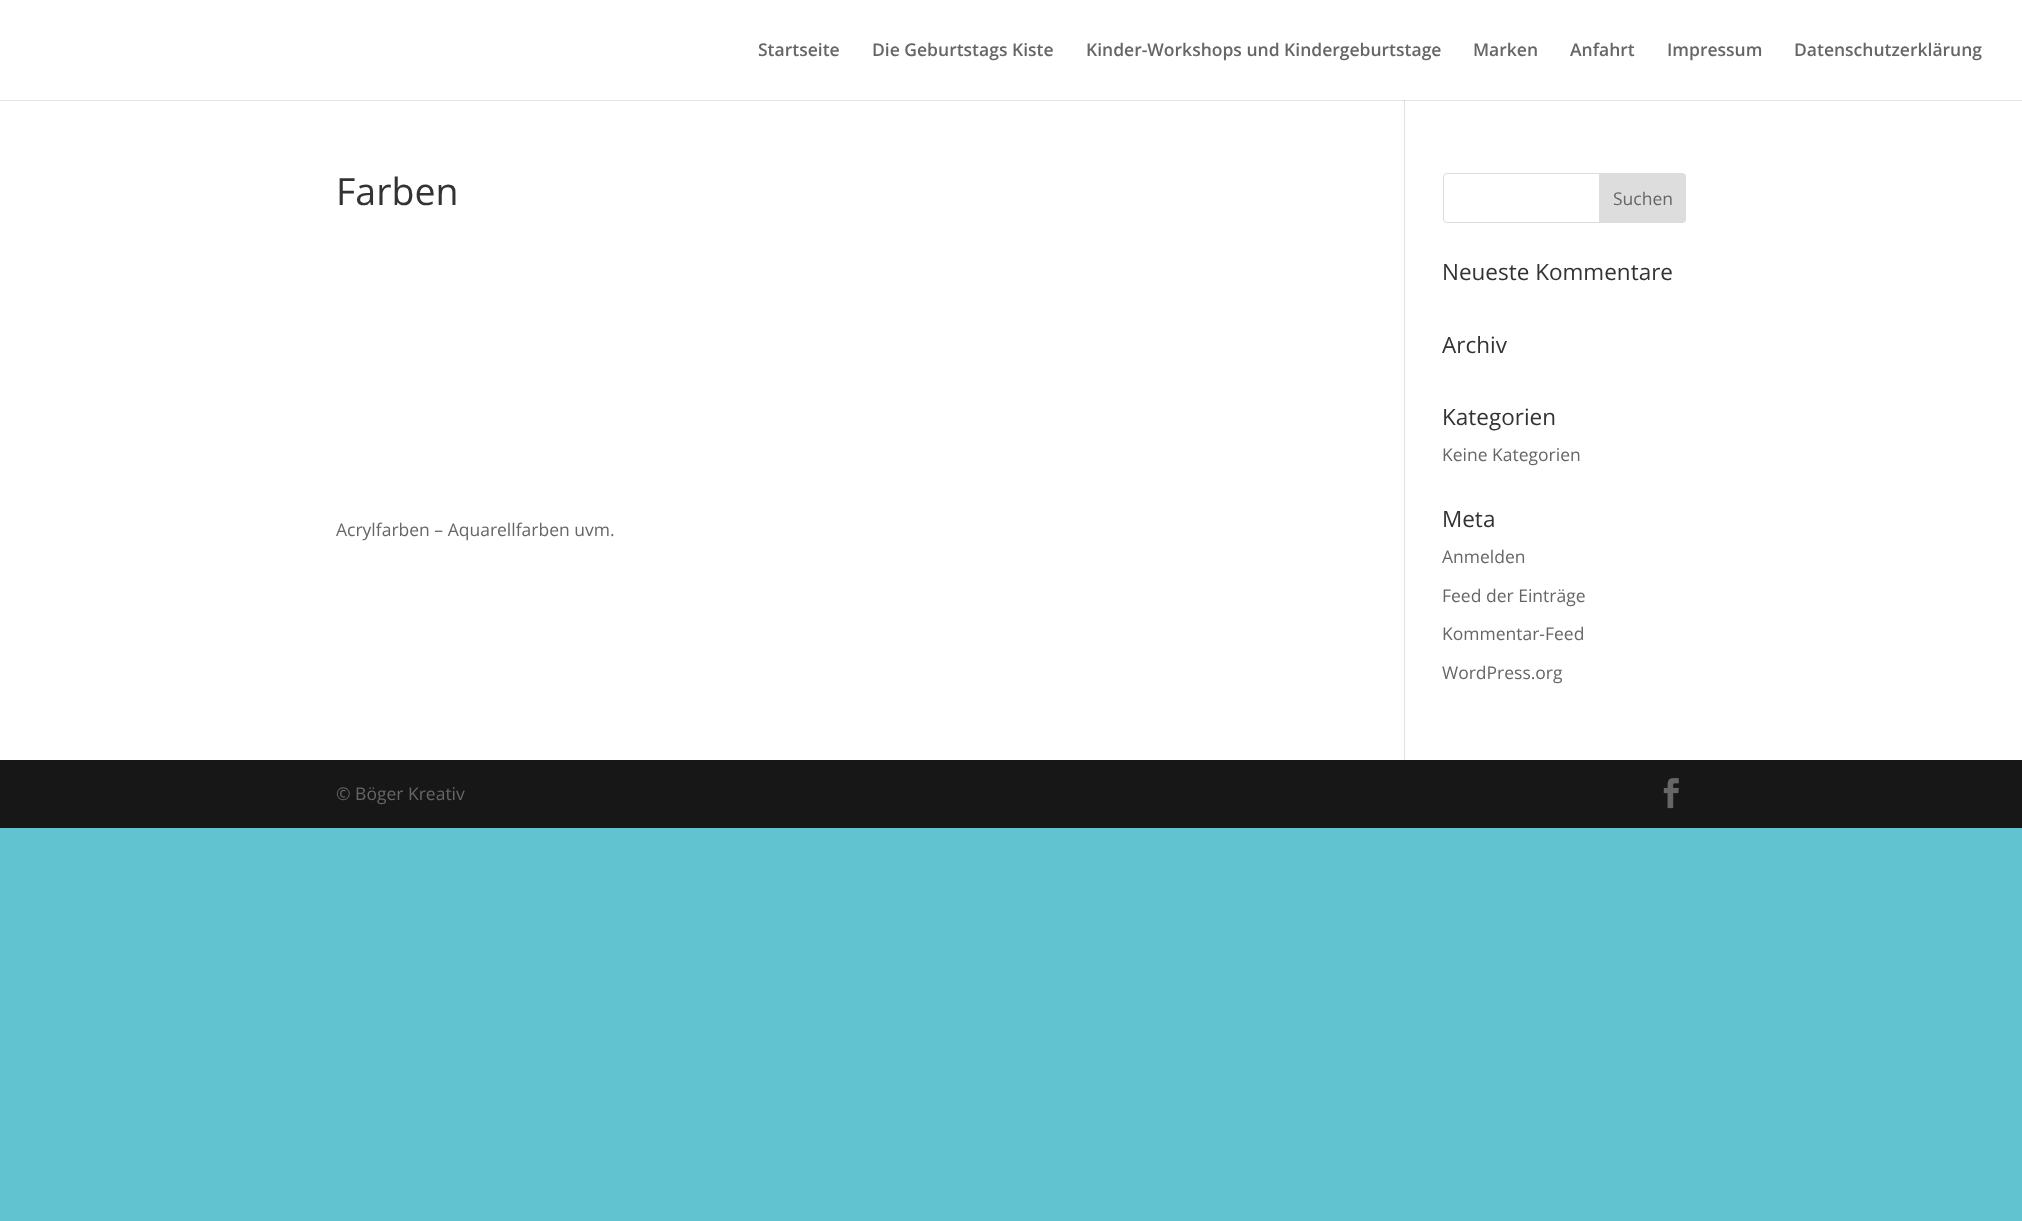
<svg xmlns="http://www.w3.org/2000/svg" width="2022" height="1221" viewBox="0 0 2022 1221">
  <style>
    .t1 { font: 600 17.5px Open Sans; fill: #666; }
    .t2 { font: 37.5px Open Sans; fill: #333; }
    .t3 { font: 17.5px Open Sans; fill: #666; }
    .t4 { font: 22.5px Open Sans; fill: #333; }
  </style>
  <rect width="100%" height="100%" fill="#61c2d0"/>
  <rect x="0" y="0" width="2022" height="760" fill="#fff"/>
  <rect x="1404" y="100" width="1" height="660" fill="#e2e2e2"/>
  <path d="M0 100V101H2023V1H2022V100Z" fill="#0000001a"/>
  <text x="758" y="56" class="t1">Startseite</text>
  <text x="872" y="56" class="t1">Die Geburtstags Kiste</text>
  <text x="1086" y="56" class="t1">Kinder-Workshops und Kindergeburtstage</text>
  <text x="1473" y="56" class="t1">Marken</text>
  <text x="1570" y="56" class="t1">Anfahrt</text>
  <text x="1667" y="56" class="t1">Impressum</text>
  <text x="1794" y="56" class="t1">Datenschutzerklärung</text>
  <text x="336" y="205" class="t2">Farben</text>
  <text x="336" y="536" class="t3">Acrylfarben – Aquarellfarben uvm.</text>
  <rect x="1443.5" y="173.5" width="242" height="49" rx="3.5" fill="none" stroke="#ddd"/>
  <path d="M1599.5 173.5H1682C1684 173.5 1685.5 175 1685.5 177V219C1685.5 221 1684 222.5 1682 222.5H1599.5Z" fill="#ddd" stroke="#ddd"/>
  <text x="1613" y="205" class="t3">Suchen</text>
  <text x="1442" y="280" class="t4">Neueste Kommentare</text>
  <text x="1442" y="353" class="t4">Archiv</text>
  <text x="1442" y="425" class="t4">Kategorien</text>
  <text x="1442" y="461" class="t3">Keine Kategorien</text>
  <text x="1442" y="527" class="t4">Meta</text>
  <text x="1442" y="563" class="t3">Anmelden</text>
  <text x="1442" y="602" class="t3">Feed der Einträge</text>
  <text x="1442" y="640" class="t3">Kommentar-Feed</text>
  <text x="1442" y="679" class="t3">WordPress.org</text>
  <rect x="0" y="760" width="2022" height="68" fill="#171717"/>
  <text x="336" y="800" class="t3">© Böger Kreativ</text>
  <image x="1663" y="778" width="16" height="31" href="images/1.png"/>
</svg>
